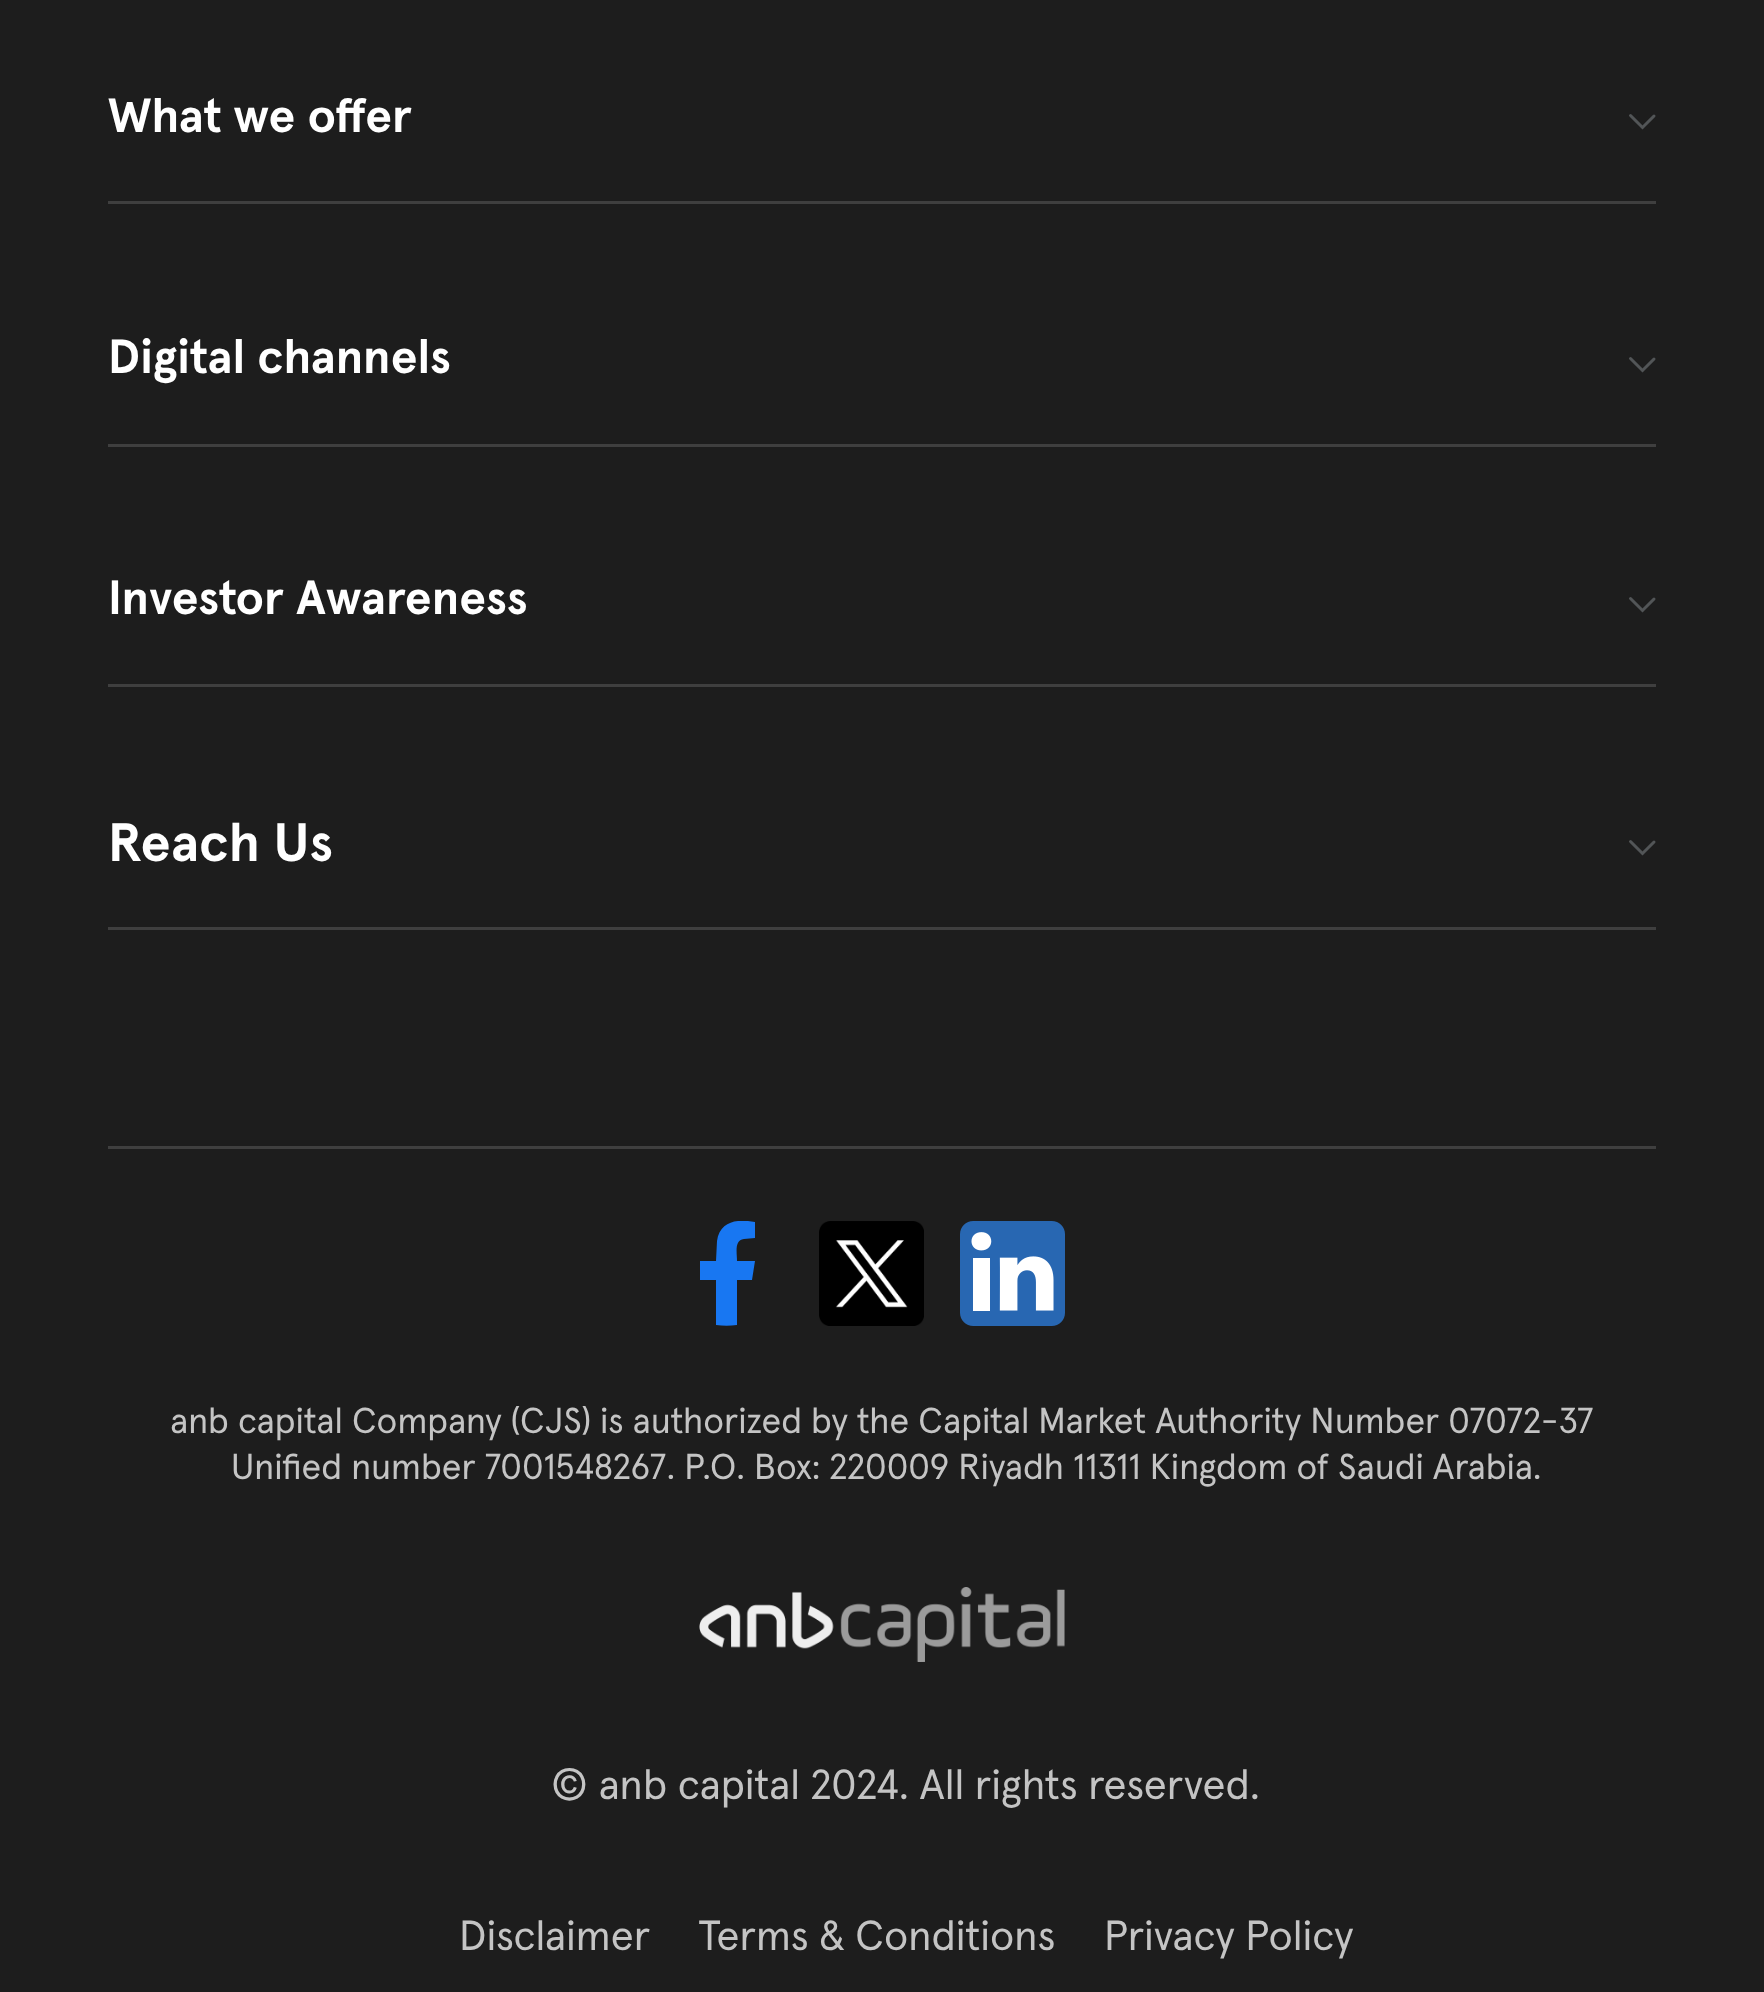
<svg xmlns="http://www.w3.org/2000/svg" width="1764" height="1992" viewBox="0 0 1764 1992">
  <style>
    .t1 { font: bold 48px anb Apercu; fill: #fff; }
    .t2 { font: bold 54px anb Apercu; fill: #fff; }
    .t3 { font: 36px anb Apercu; fill: #c4c4c4; }
    .t4 { font: 42px anb Apercu; fill: #c4c4c4; }
  </style>
  <defs>
    <clipPath id="clip1"><rect x="675" y="1221" width="105" height="105"/></clipPath>
  </defs>
  <rect width="100%" height="100%" fill="#1d1d1d"/>
  <rect x="108" y="201" width="1548" height="3" fill="#3f3f3f"/>
  <text x="108" y="132" class="t1">What we offer</text>
  <path d="M1654 116L1642.5 127.5L1630.5 115.5" fill="none" stroke="#525557" stroke-width="3" stroke-linecap="round"/>
  <rect x="108" y="444" width="1548" height="3" fill="#3f3f3f"/>
  <text x="108" y="373" class="t1">Digital channels</text>
  <path d="M1654 359L1642.5 370.5L1630.5 358.5" fill="none" stroke="#525557" stroke-width="3" stroke-linecap="round"/>
  <rect x="108" y="684" width="1548" height="3" fill="#3f3f3f"/>
  <text x="108" y="614" class="t1">Investor Awareness</text>
  <path d="M1654 599L1642.5 610.5L1630.5 598.5" fill="none" stroke="#525557" stroke-width="3" stroke-linecap="round"/>
  <rect x="108" y="927" width="1548" height="3" fill="#3f3f3f"/>
  <text x="108" y="861" class="t2">Reach Us</text>
  <path d="M1654 842L1642.5 853.5L1630.5 841.5" fill="none" stroke="#525557" stroke-width="3" stroke-linecap="round"/>
  <rect x="108" y="1146" width="1548" height="3" fill="#3f3f3f"/>
  <g clip-path="url(#clip1)">
    <path d="M752 1280L755 1261H737C737 1253 734 1240 744 1239L755 1238V1222C739 1219 720 1220 717 1241L716 1261H700V1280H716V1325C723 1326 730 1326 737 1325V1280Z" fill="#1877f2"/>
  </g>
  <image x="819" y="1221" width="105" height="105" href="images/1.png"/>
  <image x="960" y="1221" width="105" height="105" href="images/2.png"/>
  <text x="170" y="1433" class="t3">anb capital Company (CJS) is authorized by the Capital Market Authority Number 07072-37</text>
  <text x="231" y="1479" class="t3">Unified number 7001548267. P.O. Box: 220009 Riyadh 11311 Kingdom of Saudi Arabia.</text>
  <image x="699" y="1587" width="366" height="75" href="images/3.png"/>
  <text x="551" y="1799" class="t4">© anb capital 2024. All rights reserved.</text>
  <text x="459" y="1950" class="t4">Disclaimer</text>
  <text x="698" y="1950" class="t4">Terms &amp; Conditions</text>
  <text x="1104" y="1950" class="t4">Privacy Policy</text>
</svg>
